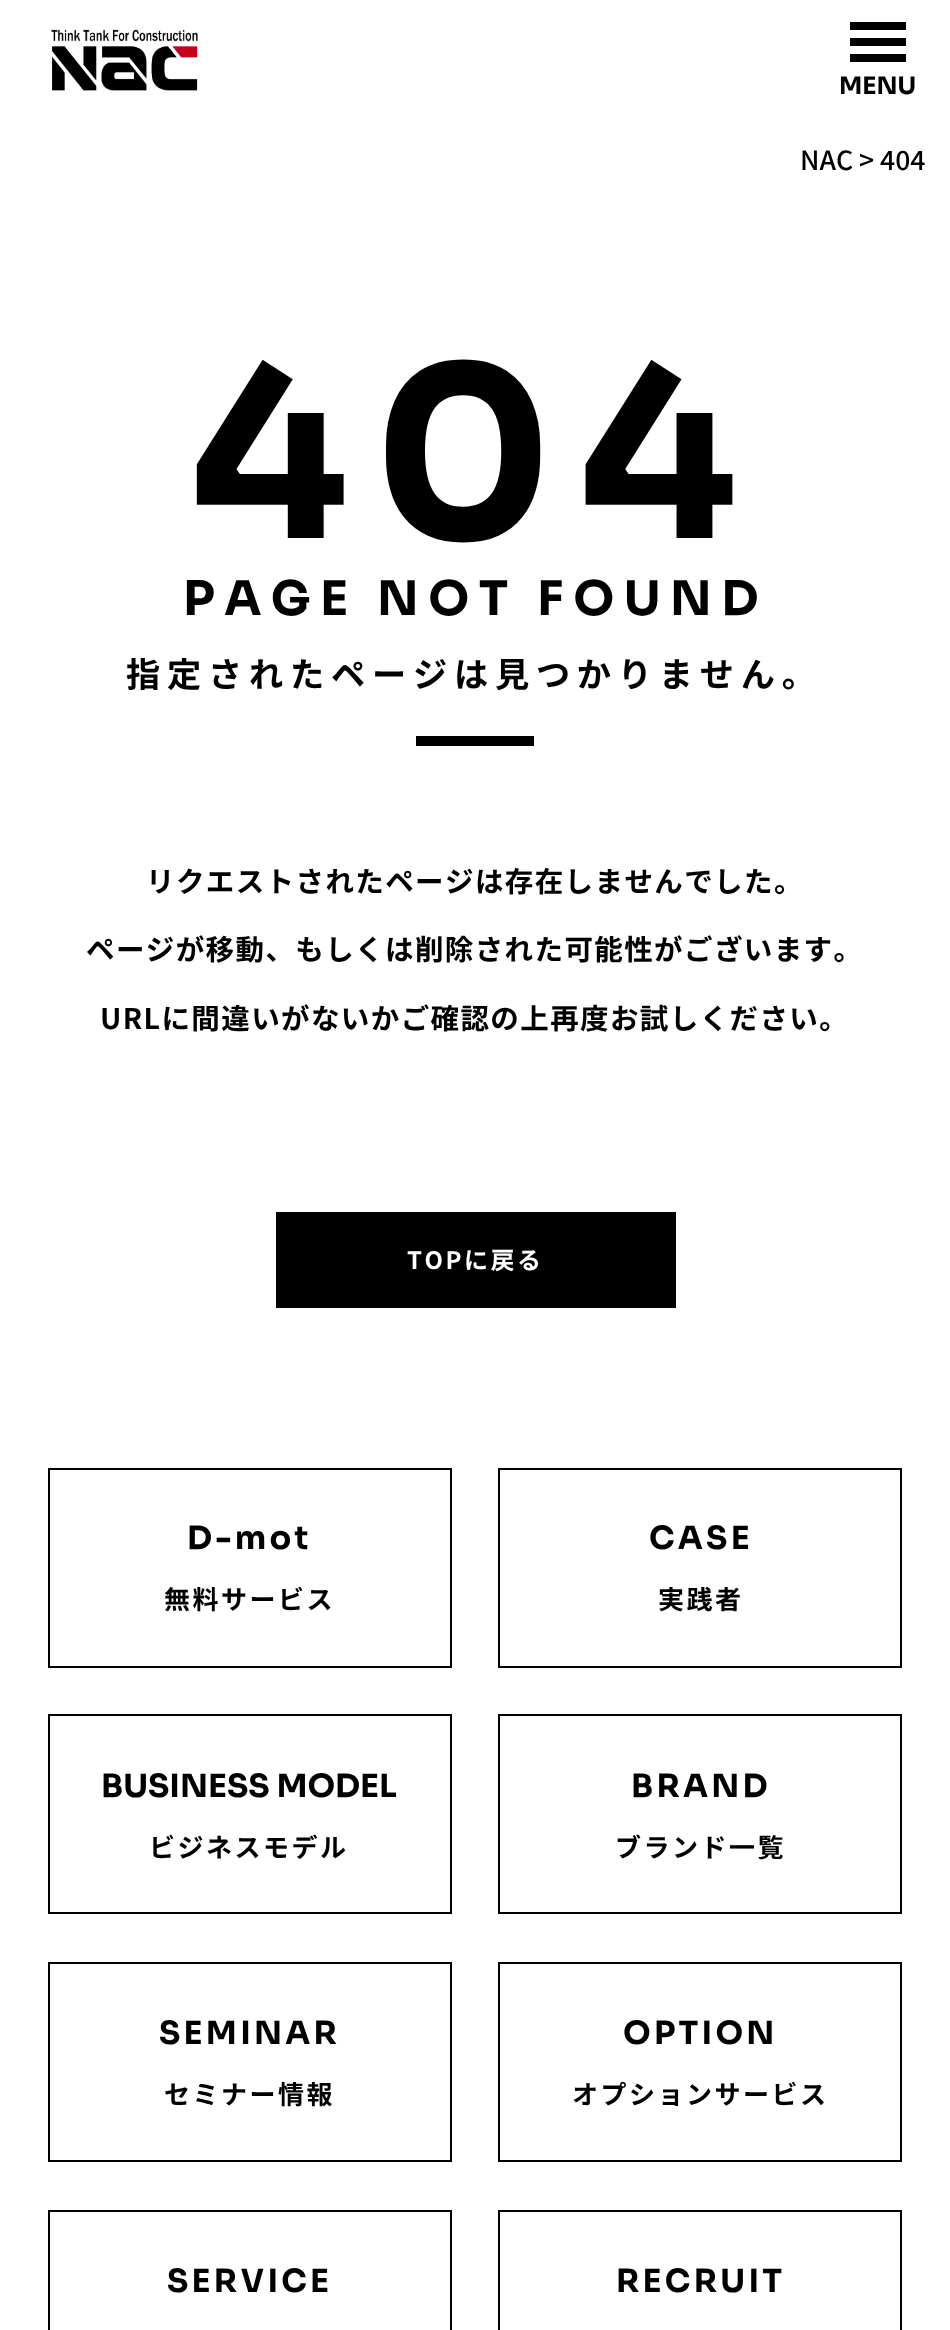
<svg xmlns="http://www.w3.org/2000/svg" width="950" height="2330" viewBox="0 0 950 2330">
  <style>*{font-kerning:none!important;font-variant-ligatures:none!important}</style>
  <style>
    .t1 { font: bold 24px Sora; fill: #000; }
    .t2 { font: 500 26.5px Noto Sans JP; fill: #000; }
    .t3 { font: bold 237.5px Sora; letter-spacing: 24px; fill: #000; }
    .t4 { font: bold 47.5px Sora; letter-spacing: 9.5px; fill: #000; }
    .t5 { font: bold 34.2px Noto Sans JP; letter-spacing: 6.8px; fill: #000; }
    .t6 { font: bold 28.5px Noto Sans JP; letter-spacing: 1.4px; fill: #000; }
    .t7 { font: bold 24px Noto Sans JP; letter-spacing: 2.5px; fill: #fff; }
    .t8 { font: bold 32px Sora; letter-spacing: 3.25px; fill: #000; }
    .t9 { font: bold 26px Noto Sans JP; letter-spacing: 2.5px; fill: #000; }
    .t10 { font: bold 32px Sora; fill: #000; }
  </style>
  <rect width="100%" height="100%" fill="#fff"/>
  <image x="51" y="29" width="147" height="62" href="images/1.png"/>
  <rect x="850" y="22" width="56" height="8" fill="#000"/>
  <rect x="850" y="38" width="56" height="8" fill="#000"/>
  <rect x="850" y="54" width="56" height="8" fill="#000"/>
  <text x="839" y="94" class="t1">MENU</text>
  <text x="800" y="170" class="t2">NAC &gt; 404</text>
  <text x="189" y="538" class="t3">404</text>
  <text x="183" y="615" class="t4">PAGE NOT FOUND</text>
  <text x="126" y="687" class="t5">指定されたページは見つかりません。</text>
  <rect x="416" y="736" width="118" height="10" fill="#000"/>
  <text x="146" y="892" class="t6">リクエストされたページは存在しませんでした。</text>
  <text x="86" y="960" class="t6">ページが移動、もしくは削除された可能性がございます。</text>
  <text x="100" y="1029" class="t6">URLに間違いがないかご確認の上再度お試しください。</text>
  <rect x="276" y="1212" width="400" height="96" fill="#000"/>
  <text x="407" y="1269" class="t7">TOPに戻る</text>
  <rect x="49" y="1469" width="402" height="198" fill="none" stroke="#000" stroke-width="2"/>
  <text x="187" y="1549" class="t8">D-mot</text>
  <text x="164" y="1609" class="t9">無料サービス</text>
  <rect x="499" y="1469" width="402" height="198" fill="none" stroke="#000" stroke-width="2"/>
  <text x="649" y="1549" class="t8">CASE</text>
  <text x="658" y="1609" class="t9">実践者</text>
  <rect x="49" y="1715" width="402" height="198" fill="none" stroke="#000" stroke-width="2"/>
  <text x="101" y="1797" class="t10">BUSINESS MODEL</text>
  <text x="149" y="1857" class="t9">ビジネスモデル</text>
  <rect x="499" y="1715" width="402" height="198" fill="none" stroke="#000" stroke-width="2"/>
  <text x="631" y="1797" class="t8">BRAND</text>
  <text x="615" y="1857" class="t9">ブランド一覧</text>
  <rect x="49" y="1963" width="402" height="198" fill="none" stroke="#000" stroke-width="2"/>
  <text x="159" y="2044" class="t8">SEMINAR</text>
  <text x="164" y="2104" class="t9">セミナー情報</text>
  <rect x="499" y="1963" width="402" height="198" fill="none" stroke="#000" stroke-width="2"/>
  <text x="623" y="2044" class="t8">OPTION</text>
  <text x="572" y="2104" class="t9">オプションサービス</text>
  <rect x="49" y="2211" width="402" height="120" fill="none" stroke="#000" stroke-width="2"/>
  <text x="167" y="2292" class="t8">SERVICE</text>
  <rect x="499" y="2211" width="402" height="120" fill="none" stroke="#000" stroke-width="2"/>
  <text x="616" y="2292" class="t8">RECRUIT</text>
</svg>
